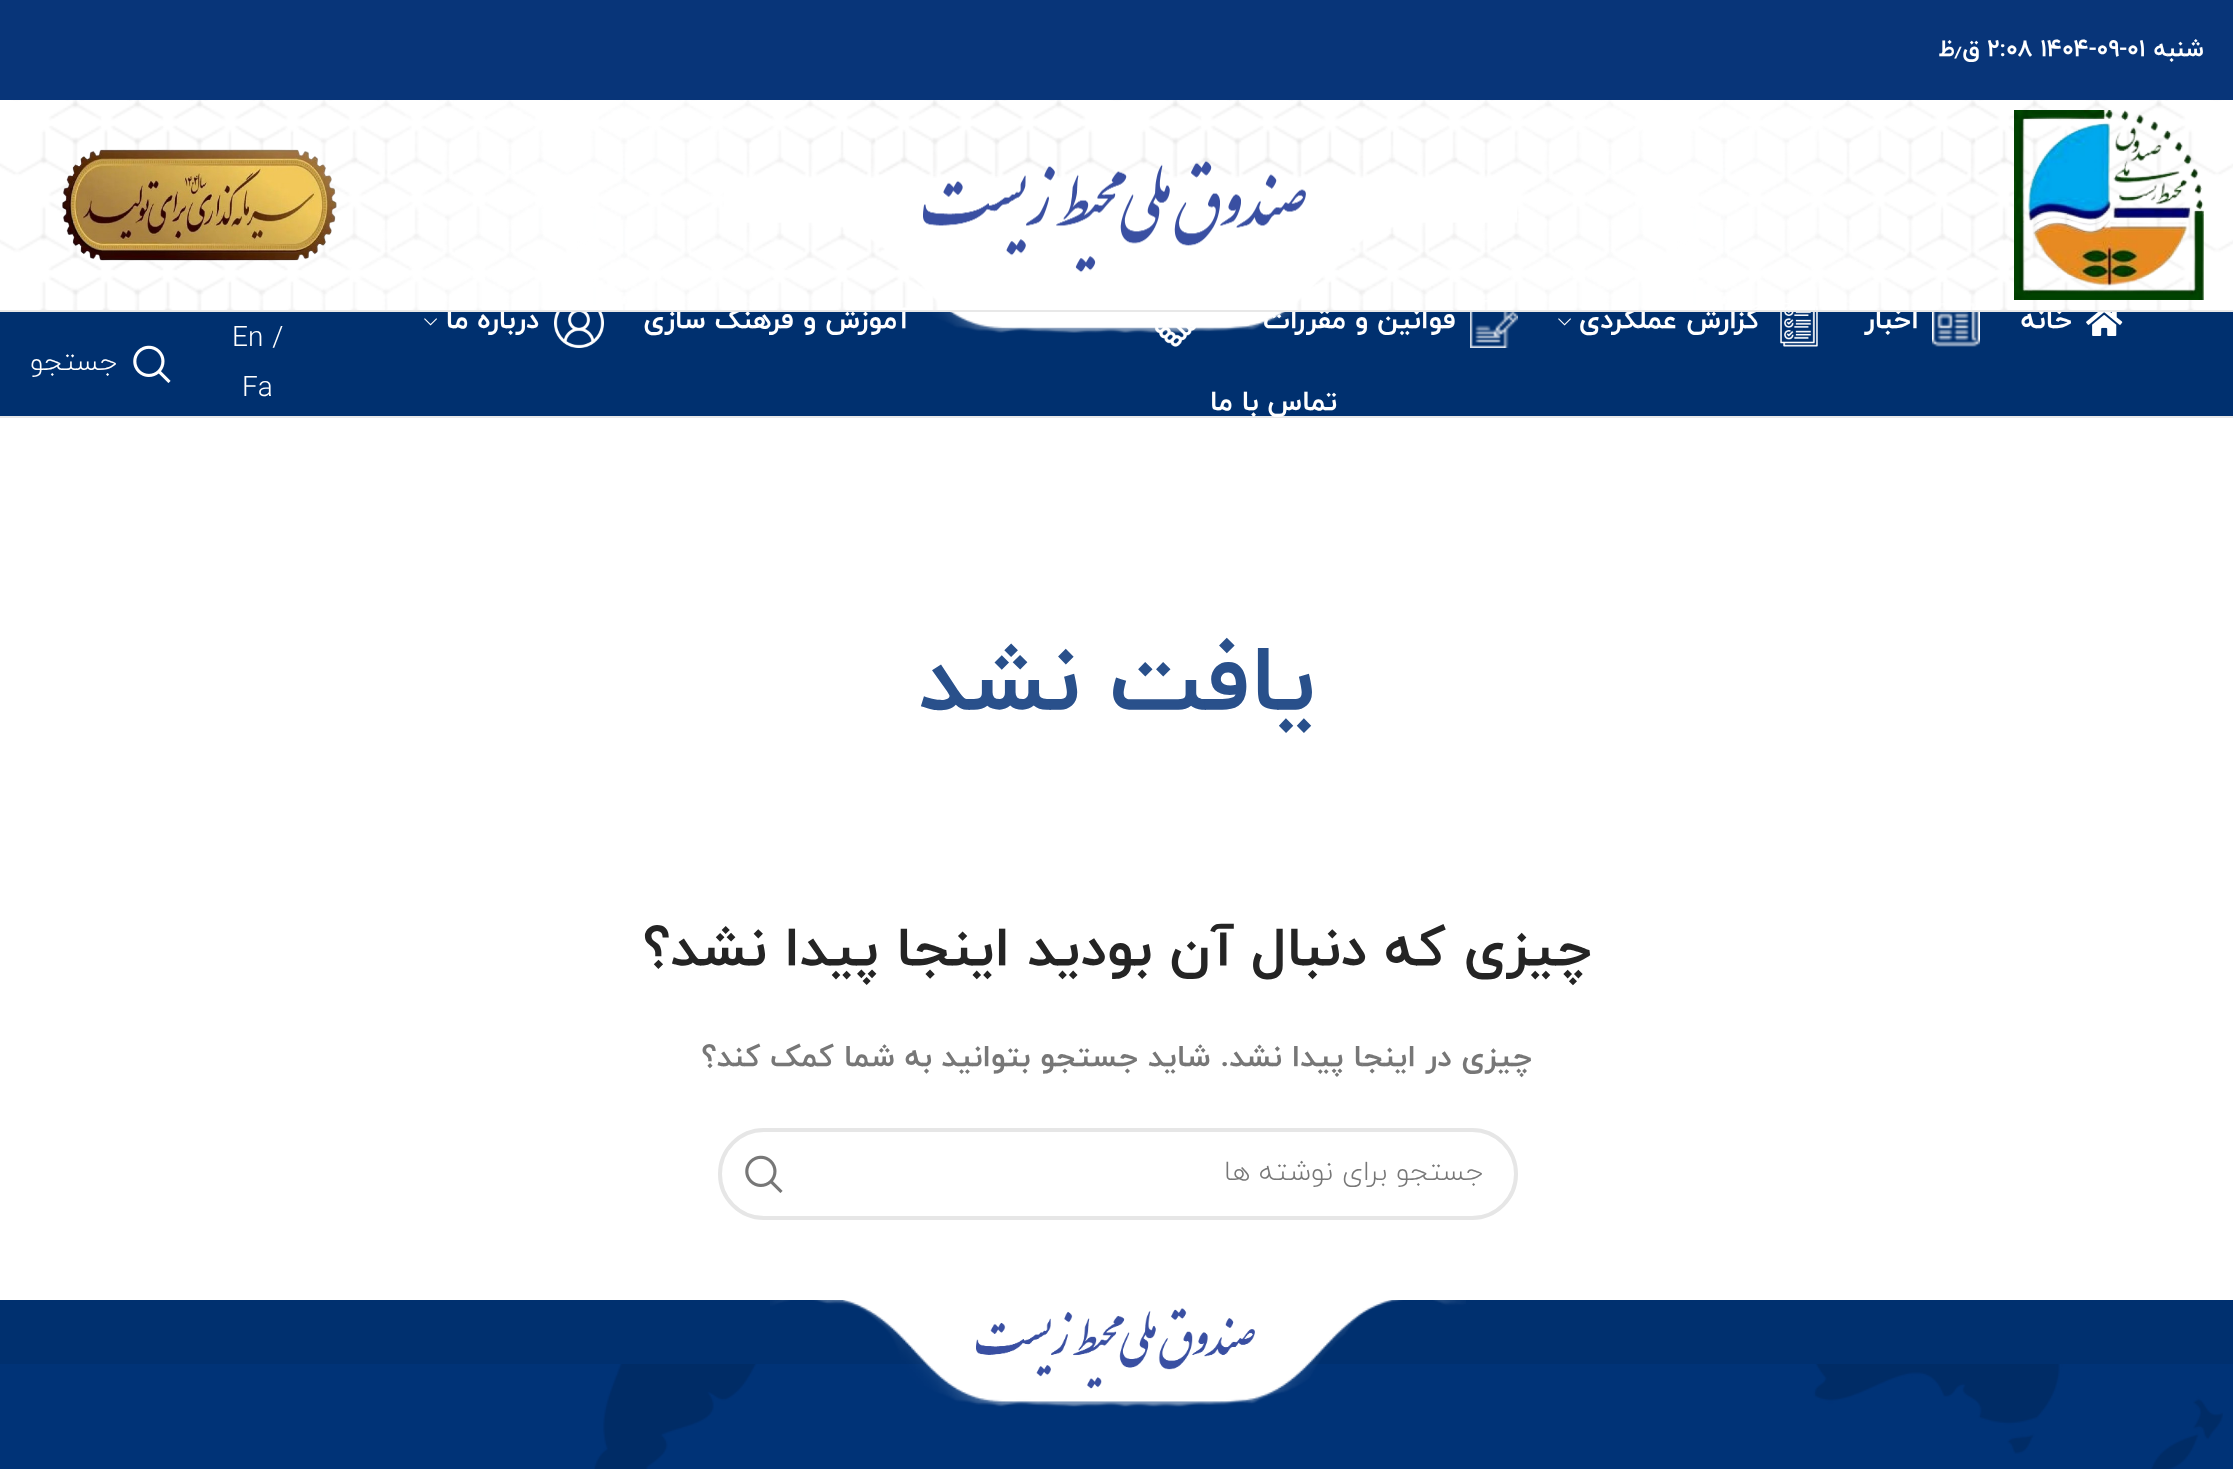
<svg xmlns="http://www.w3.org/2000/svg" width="2233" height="1469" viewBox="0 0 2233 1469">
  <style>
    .t1 { font: bold 24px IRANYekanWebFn; direction: rtl; fill: #fff; }
    .t2 { font: bold 24px IRANYekanWebFn; fill: #fff; }
    .t3 { font: bold 28px IRANYekanWebFn; direction: rtl; fill: #fff; }
    .t4 { font: 300 28px IRANYekanWebFn; fill: #fff; }
    .t5 { font: 300 28px IRANYekanWebFn; direction: rtl; fill: #fff; }
    .t6 { font: bold 94px IRANYekanWebFn; direction: rtl; fill: #29508b; }
    .t7 { font: bold 56px IRANYekanWebFn; direction: rtl; fill: #242424; }
    .t8 { font: bold 30.8px IRANYekanWebFn; direction: rtl; fill: #777; }
    .t9 { font: 300 28px IRANYekanWebFn; direction: rtl; fill: #777; }
  </style>
  <rect width="100%" height="100%" fill="#fff"/>
  <image x="0" y="100" width="2233" height="210" href="images/1.png"/>
  <rect x="0" y="0" width="2233" height="100" fill="#083579"/>
  <text x="2204" y="56" class="t1">شنبه</text>
  <text x="1987" y="56" class="t2">۲:۰۸ ۱۴۰۴-۰۹-۰۱</text>
  <text x="1980" y="56" class="t1">ق</text>
  <text x="1955" y="56" class="t1">ظ</text>
  <text x="1955" y="56" class="t2">٫</text>
  <rect x="0" y="312" width="2233" height="104" fill="#00306f"/>
  <text x="2072" y="328" class="t3">خانه</text>
  <image x="1932" y="303" width="48" height="44" href="images/6.png"/>
  <text x="1919" y="328" class="t3">اخبار</text>
  <image x="1780" y="303" width="38" height="44" href="images/7.png"/>
  <text x="1760" y="328" class="t3">گزارش عملکردی</text>
  <image x="724" y="176" width="793" height="157" href="images/13.png"/>
  <image x="1470" y="300" width="48" height="48" href="images/9.png"/>
  <text x="1456" y="328" class="t3">قوانین و مقررات</text>
  <text x="909" y="328" class="t3">آموزش و فرهنگ سازی</text>
  <text x="539" y="328" class="t3">درباره ما</text>
  <rect x="0" y="310" width="2233" height="2" fill="#e8e8e8"/>
  <image x="2014" y="110" width="190" height="190" href="images/2.png"/>
  <image x="923" y="160" width="383" height="113" href="images/3.png"/>
  <image x="62" y="149" width="275" height="112" href="images/4.png"/>
  <rect x="0" y="416" width="2233" height="2" fill="#e8e8e8"/>
  <image x="2086" y="312" width="37" height="24" href="images/5.png"/>
  <image x="1558" y="318" width="13" height="8" href="images/8.png"/>
  <image x="1248" y="324" width="2" height="2" href="images/10.png"/>
  <image x="554" y="312" width="50" height="36" href="images/11.png"/>
  <image x="424" y="318" width="13" height="8" href="images/8.png"/>
  <image x="1154" y="327" width="42" height="20" href="images/12.png"/>
  <text x="1337" y="410" class="t3">تماس با ما</text>
  <text x="232" y="346" class="t4">En /</text>
  <text x="242" y="396" class="t4">Fa</text>
  <image x="133" y="345" width="38" height="38" href="images/14.png"/>
  <text x="117" y="370" class="t5">جستجو</text>
  <text x="1315" y="709" class="t6">یافت نشد</text>
  <text x="1592" y="965" class="t7">چیزی که دنبال آن بودید اینجا پیدا نشد؟</text>
  <text x="1532" y="1066" class="t8">چیزی در اینجا پیدا نشد. شاید جستجو بتوانید به شما کمک کند؟</text>
  <rect x="720" y="1130" width="796" height="88" rx="44" fill="none" stroke="#e6e6e6" stroke-width="4"/>
  <text x="1483" y="1180" class="t9">جستجو برای نوشته ها</text>
  <image x="745" y="1155" width="38" height="38" href="images/15.png"/>
  <rect x="0" y="1300" width="2233" height="64" fill="#00306f"/>
  <rect x="0" y="1364" width="2233" height="105" fill="#037"/>
  <image x="594" y="1364" width="1629" height="105" href="images/18.png"/>
  <image x="770" y="1300" width="696" height="107" href="images/16.png"/>
  <image x="976" y="1308" width="279" height="81" href="images/17.png"/>
</svg>
